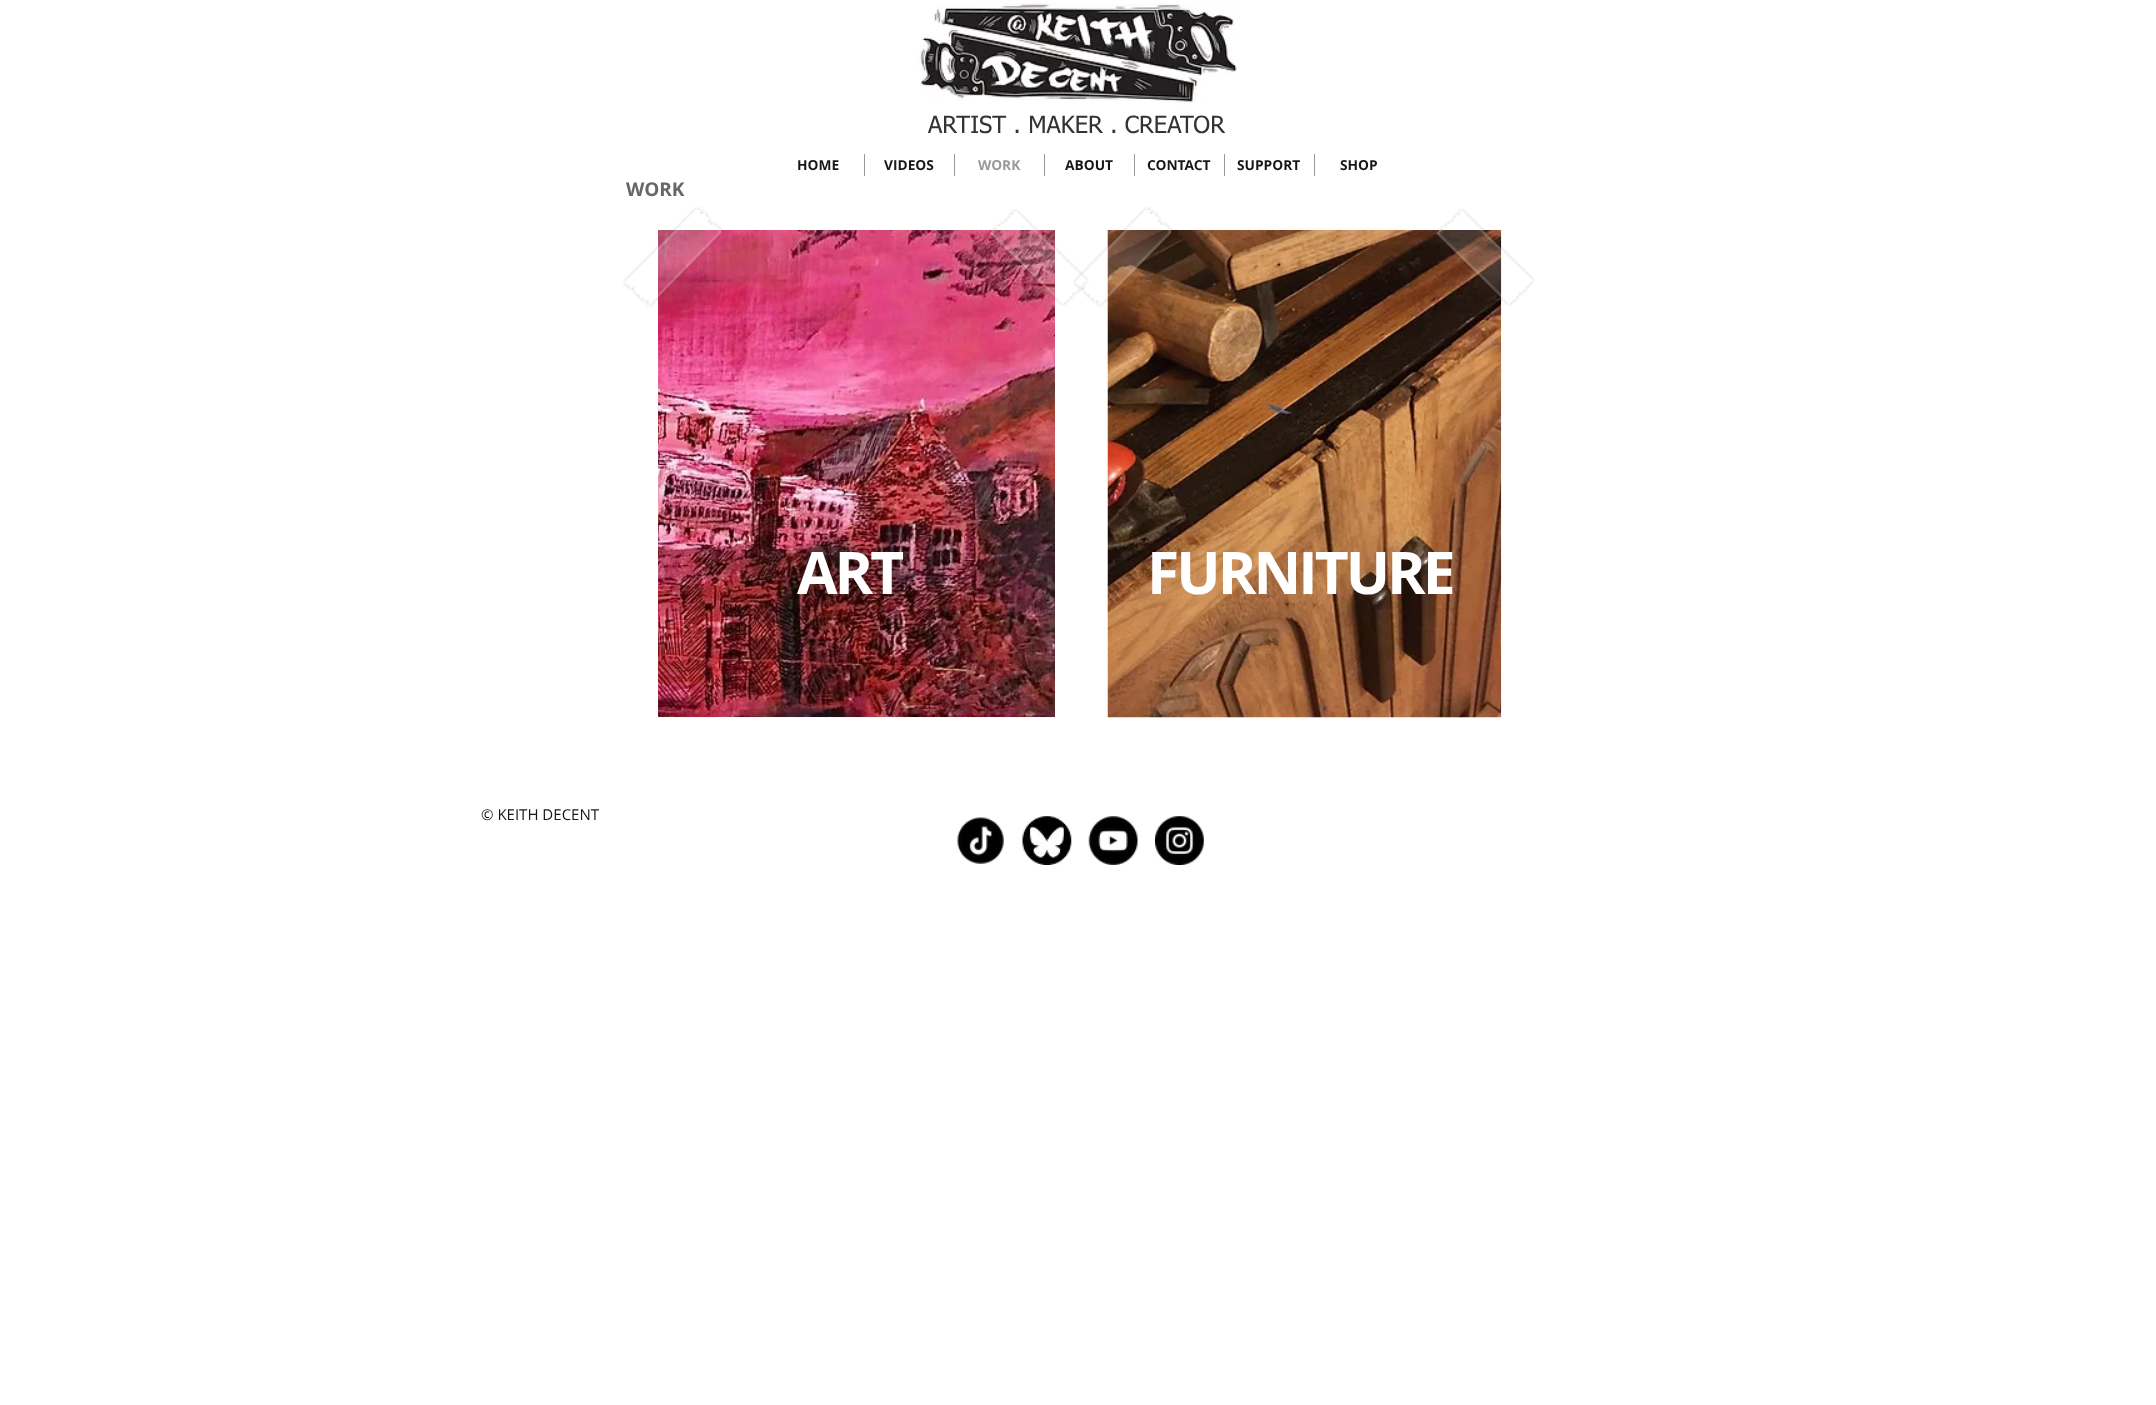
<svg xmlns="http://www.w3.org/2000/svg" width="2156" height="1405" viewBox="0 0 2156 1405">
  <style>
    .t1 { font: 23.75px tahoma; fill: #333; }
    .t2 { font: bold 13.75px Open Sans; fill: #181717; }
    .t3 { font: bold 13.75px Open Sans; fill: #999; }
    .t4 { font: bold 19px Open Sans; fill: #666; }
    .t5 { font: bold 58.75px Open Sans; letter-spacing: -3px; fill: #fff; }
    .t6 { font: 15px Open Sans; fill: #181717; }
  </style>
  <rect width="100%" height="100%" fill="#fff"/>
  <image x="916" y="3" width="321" height="102" href="images/1.png"/>
  <text x="928" y="133" class="t1">ARTIST . MAKER . CREATOR</text>
  <text x="797" y="170" class="t2">HOME</text>
  <rect x="864" y="154" width="1" height="22" fill="#999"/>
  <text x="884" y="170" class="t2">VIDEOS</text>
  <rect x="954" y="154" width="1" height="22" fill="#999"/>
  <text x="978" y="170" class="t3">WORK</text>
  <rect x="1044" y="154" width="1" height="22" fill="#999"/>
  <text x="1065" y="170" class="t2">ABOUT</text>
  <rect x="1134" y="154" width="1" height="22" fill="#999"/>
  <text x="1147" y="170" class="t2">CONTACT</text>
  <rect x="1224" y="154" width="1" height="22" fill="#999"/>
  <text x="1237" y="170" class="t2">SUPPORT</text>
  <rect x="1314" y="154" width="1" height="22" fill="#999"/>
  <text x="1340" y="170" class="t2">SHOP</text>
  <text x="626" y="196" class="t4">WORK</text>
  <image x="658" y="230" width="397" height="488" href="images/4.png"/>
  <image x="623" y="207" width="100" height="100" href="images/2.png"/>
  <image x="990" y="209" width="99" height="97" href="images/3.png"/>
  <image x="1107" y="230" width="395" height="488" href="images/7.png"/>
  <image x="1073" y="207" width="100" height="100" href="images/5.png"/>
  <image x="1436" y="209" width="99" height="97" href="images/6.png"/>
  <text x="797" y="594" class="t5">ART</text>
  <text x="1147" y="594" class="t5">FURNITURE</text>
  <text x="481" y="820" class="t6">© KEITH DECENT</text>
  <image x="957" y="817" width="47" height="47" href="images/8.png"/>
  <image x="1022" y="816" width="50" height="49" href="images/9.png"/>
  <image x="1088" y="816" width="50" height="49" href="images/10.png"/>
  <image x="1155" y="816" width="49" height="49" href="images/11.png"/>
</svg>
